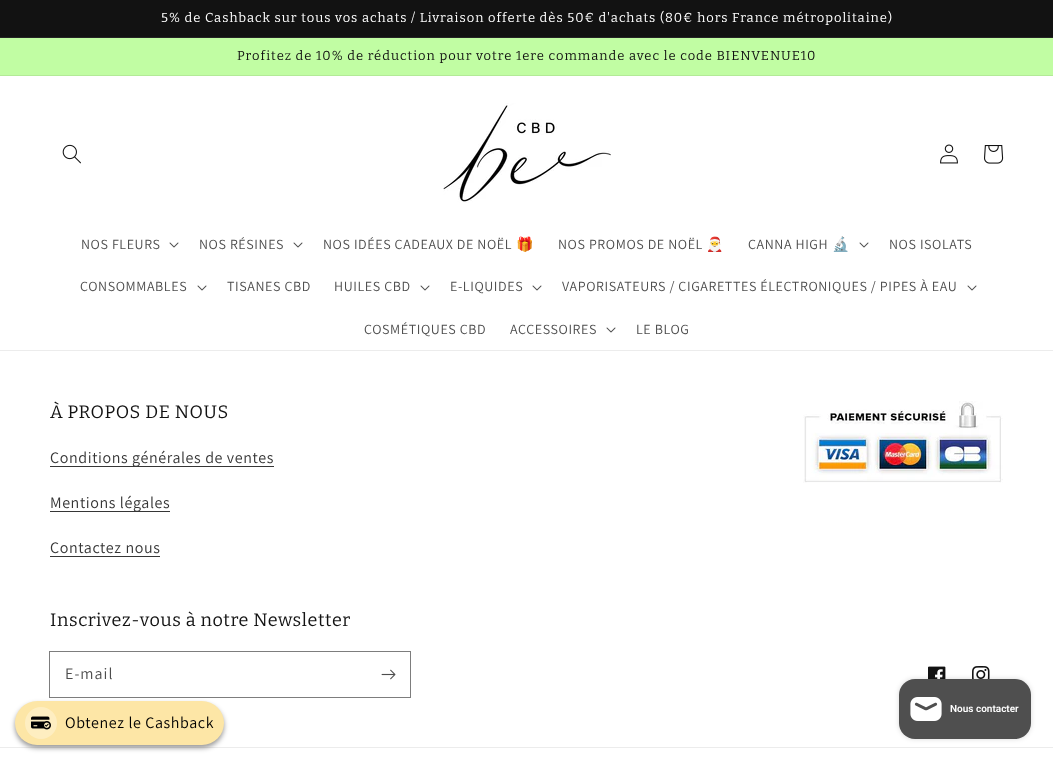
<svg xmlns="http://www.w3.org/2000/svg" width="1053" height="760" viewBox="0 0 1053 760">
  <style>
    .t1 { font: 13px Bitter; letter-spacing: 1px; fill: #fff; }
    .t2 { font: 13px Bitter; letter-spacing: 1px; fill: #121212; }
    .t3 { font: 14px Assistant; letter-spacing: 0.6px; fill: #4d4d4d; }
    .t4 { font: 14px Noto Color Emoji; letter-spacing: 0.6px; fill: #4d4d4d; }
    .t5 { font: 18px Bitter; letter-spacing: 0.6px; fill: #121212; }
    .t6 { font: 16px Assistant; letter-spacing: 0.6px; fill: #353535; }
    .t7 { font: 16px Assistant; letter-spacing: 1px; fill: #4d4d4d; }
    .t8 { font: 600 10px Roboto; fill: #fff; }
    .t9 { font: 16px Assistant; letter-spacing: 0.6px; fill: #000; }
  </style>
  <defs>
    <radialGradient id="g1" gradientUnits="userSpaceOnUse" cx="0" cy="0" r="1" gradientTransform="matrix(745 0 0 537 527 380)"><stop offset="1" stop-color="#c1fda3"/><stop offset="1" stop-color="#ffcc4b"/></radialGradient>
  </defs>
  <rect width="100%" height="100%" fill="#fff"/>
  <rect x="0" y="0" width="1053" height="37" fill="#121212"/>
  <rect x="0" y="37" width="1053" height="1" fill="#252525"/>
  <text x="161" y="22" class="t1">5% de Cashback sur tous vos achats / Livraison offerte dès 50€ d'achats (80€ hors France métropolitaine)</text>
  <rect x="0" y="38" width="1053" height="37" fill="url(#g1)"/>
  <rect x="0" y="75" width="1053" height="1" fill="#b3ea97"/>
  <text x="237" y="60" class="t2">Profitez de 10% de réduction pour votre 1ere commande avec le code BIENVENUE10</text>
  <image x="62" y="144" width="19" height="20" href="images/1.png"/>
  <image x="443" y="103" width="168" height="100" href="images/2.png"/>
  <image x="940" y="144" width="18" height="20" href="images/3.png"/>
  <image x="984" y="145" width="20" height="19" href="images/4.png"/>
  <text x="81" y="249" class="t3">NOS FLEURS</text>
  <image x="169" y="242" width="10" height="6" href="images/5.png"/>
  <text x="199" y="249" class="t3">NOS RÉSINES</text>
  <image x="293" y="242" width="10" height="6" href="images/5.png"/>
  <text x="323" y="249" class="t3">NOS IDÉES CADEAUX DE NOËL</text>
  <text x="516" y="249" class="t4">🎁</text>
  <text x="558" y="249" class="t3">NOS PROMOS DE NOËL</text>
  <text x="706" y="249" class="t4">🎅</text>
  <text x="748" y="249" class="t3">CANNA HIGH</text>
  <text x="832" y="249" class="t4">🔬</text>
  <image x="859" y="242" width="10" height="6" href="images/5.png"/>
  <text x="889" y="249" class="t3">NOS ISOLATS</text>
  <text x="80" y="291" class="t3">CONSOMMABLES</text>
  <image x="197" y="285" width="10" height="6" href="images/5.png"/>
  <text x="227" y="291" class="t3">TISANES CBD</text>
  <text x="334" y="291" class="t3">HUILES CBD</text>
  <image x="420" y="285" width="10" height="6" href="images/5.png"/>
  <text x="450" y="291" class="t3">E-LIQUIDES</text>
  <image x="532" y="285" width="10" height="6" href="images/5.png"/>
  <text x="562" y="291" class="t3">VAPORISATEURS / CIGARETTES ÉLECTRONIQUES / PIPES À EAU</text>
  <image x="967" y="285" width="10" height="6" href="images/5.png"/>
  <text x="364" y="334" class="t3">COSMÉTIQUES CBD</text>
  <text x="510" y="334" class="t3">ACCESSOIRES</text>
  <image x="606" y="327" width="10" height="6" href="images/5.png"/>
  <text x="636" y="334" class="t3">LE BLOG</text>
  <rect x="0" y="350" width="1053" height="1" fill="#ececec"/>
  <text x="50" y="418" class="t5">À PROPOS DE NOUS</text>
  <rect x="50" y="466" width="224" height="1" fill="#363636"/>
  <text x="50" y="463" class="t6">Conditions générales de ventes</text>
  <rect x="50" y="511" width="120" height="1" fill="#363636"/>
  <text x="50" y="508" class="t6">Mentions légales</text>
  <text x="50" y="553" class="t6">Contactez nous</text>
  <rect x="50" y="556" width="110" height="1" fill="#363636"/>
  <image x="803" y="401" width="200" height="82" href="images/6.png"/>
  <text x="50" y="626" class="t5">Inscrivez-vous à notre Newsletter</text>
  <rect x="49.5" y="651.5" width="361" height="46" fill="none" stroke="#7d7d7d"/>
  <text x="65" y="679" class="t7">E-mail</text>
  <image x="381" y="669" width="15" height="11" href="images/7.png"/>
  <image x="928" y="666" width="18" height="13" href="images/8.png"/>
  <image x="972" y="666" width="18" height="13" href="images/9.png"/>
  <rect x="0" y="747" width="1053" height="1" fill="#ececec"/>
  <rect x="899" y="679" width="132" height="60" rx="16" fill="#00000026" filter="blur(2.5px)"/>
  <rect x="899" y="679" width="132" height="60" rx="16" fill="#4f4f4f"/>
  <image x="910" y="697" width="32" height="24" href="images/10.png"/>
  <text x="950" y="712" class="t8">Nous contacter</text>
  <rect x="15" y="704" width="209" height="44" rx="22" fill="#00000066" filter="blur(2.5px)"/>
  <rect x="15" y="701" width="209" height="44" rx="22" fill="#fde6a6"/>
  <circle cx="41" cy="723" r="16" fill="#feeec1"/>
  <image x="31" y="716" width="20" height="14" href="images/11.png"/>
  <text x="65" y="728" class="t9">Obtenez le Cashback</text>
</svg>
